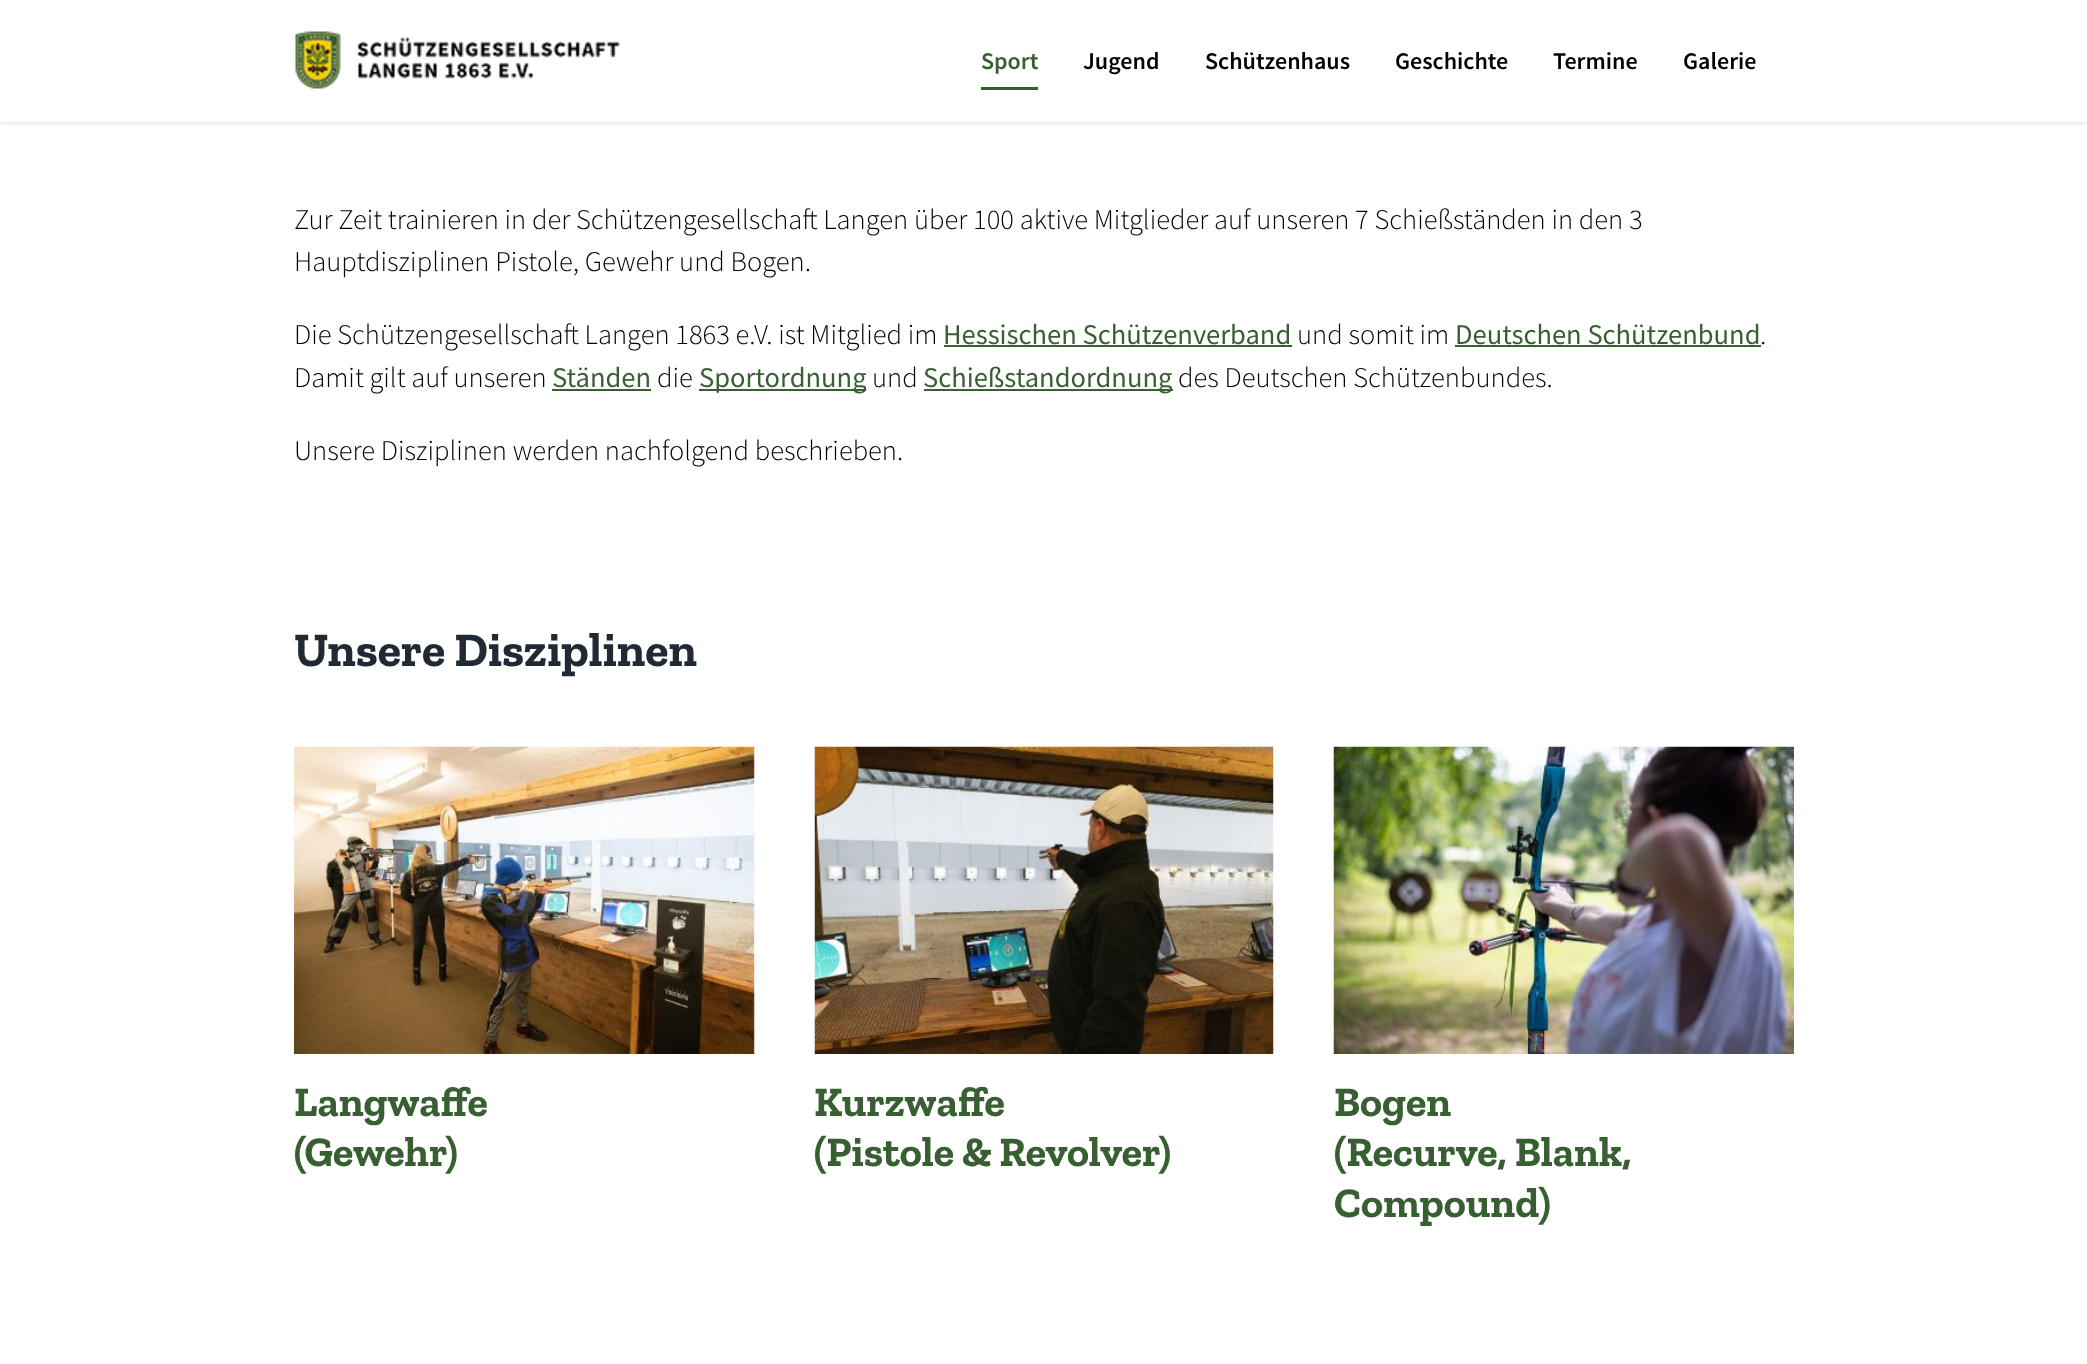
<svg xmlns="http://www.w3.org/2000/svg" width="2087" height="1364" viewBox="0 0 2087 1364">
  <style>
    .t1 { font: 600 24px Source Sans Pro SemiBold; fill: #375f32; }
    .t2 { font: 600 24px Source Sans Pro SemiBold; fill: #000; }
    .t3 { font: 300 28.5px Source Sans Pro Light; fill: #000; }
    .t4 { font: 28.5px Source Sans Pro; fill: #375f32; }
    .t5 { font: bold 48px Zilla Slab; fill: #212934; }
    .t6 { font: bold 42px Zilla Slab; fill: #375f32; }
  </style>
  <rect width="100%" height="100%" fill="#fff"/>
  <rect x="0" y="2" width="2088" height="121" fill="#0000001f" filter="blur(2px)"/>
  <rect x="0" y="0" width="2087" height="122" fill="#fff"/>
  <image x="295" y="31" width="325" height="58" href="images/1.png"/>
  <text x="981" y="69" class="t1">Sport</text>
  <rect x="981" y="87" width="57" height="3" fill="#375f32"/>
  <text x="1083" y="69" class="t2">Jugend</text>
  <text x="1205" y="69" class="t2">Schützenhaus</text>
  <text x="1395" y="69" class="t2">Geschichte</text>
  <text x="1553" y="69" class="t2">Termine</text>
  <text x="1683" y="69" class="t2">Galerie</text>
  <text x="294" y="229" class="t3">Zur Zeit trainieren in der Schützengesellschaft Langen über 100 aktive Mitglieder auf unseren 7 Schießständen in den 3</text>
  <text x="294" y="271" class="t3">Hauptdisziplinen Pistole, Gewehr und Bogen.</text>
  <text x="294" y="344" class="t3">Die Schützengesellschaft Langen 1863 e.V. ist Mitglied im</text>
  <text x="943" y="344" class="t4">Hessischen Schützenverband</text>
  <rect x="944" y="345" width="348" height="2" fill="#375f32"/>
  <text x="1297" y="344" class="t3">und somit im</text>
  <text x="1455" y="344" class="t4">Deutschen Schützenbund</text>
  <rect x="1455" y="345" width="306" height="2" fill="#375f32"/>
  <text x="1760" y="344" class="t3">.</text>
  <text x="294" y="387" class="t3">Damit gilt auf unseren</text>
  <text x="552" y="387" class="t4">Ständen</text>
  <rect x="552" y="389" width="99" height="2" fill="#375f32"/>
  <text x="657" y="387" class="t3">die</text>
  <rect x="699" y="389" width="167" height="2" fill="#375f32"/>
  <text x="699" y="387" class="t4">Sportordnung</text>
  <text x="872" y="387" class="t3">und</text>
  <rect x="924" y="389" width="249" height="2" fill="#375f32"/>
  <text x="923" y="387" class="t4">Schießstandordnung</text>
  <text x="1178" y="387" class="t3">des Deutschen Schützenbundes.</text>
  <text x="294" y="460" class="t3">Unsere Disziplinen werden nachfolgend beschrieben.</text>
  <text x="294" y="666" class="t5">Unsere Disziplinen</text>
  <image x="294" y="746" width="461" height="308" href="images/2.png"/>
  <text x="294" y="1116" class="t6">Langwaffe</text>
  <text x="294" y="1166" class="t6">(Gewehr)</text>
  <image x="814" y="746" width="460" height="308" href="images/3.png"/>
  <text x="814" y="1116" class="t6">Kurzwaffe</text>
  <text x="814" y="1166" class="t6">(Pistole &amp; Revolver)</text>
  <image x="1333" y="746" width="461" height="308" href="images/4.png"/>
  <text x="1334" y="1116" class="t6">Bogen</text>
  <text x="1334" y="1166" class="t6">(Recurve, Blank,</text>
  <text x="1334" y="1217" class="t6">Compound)</text>
</svg>
